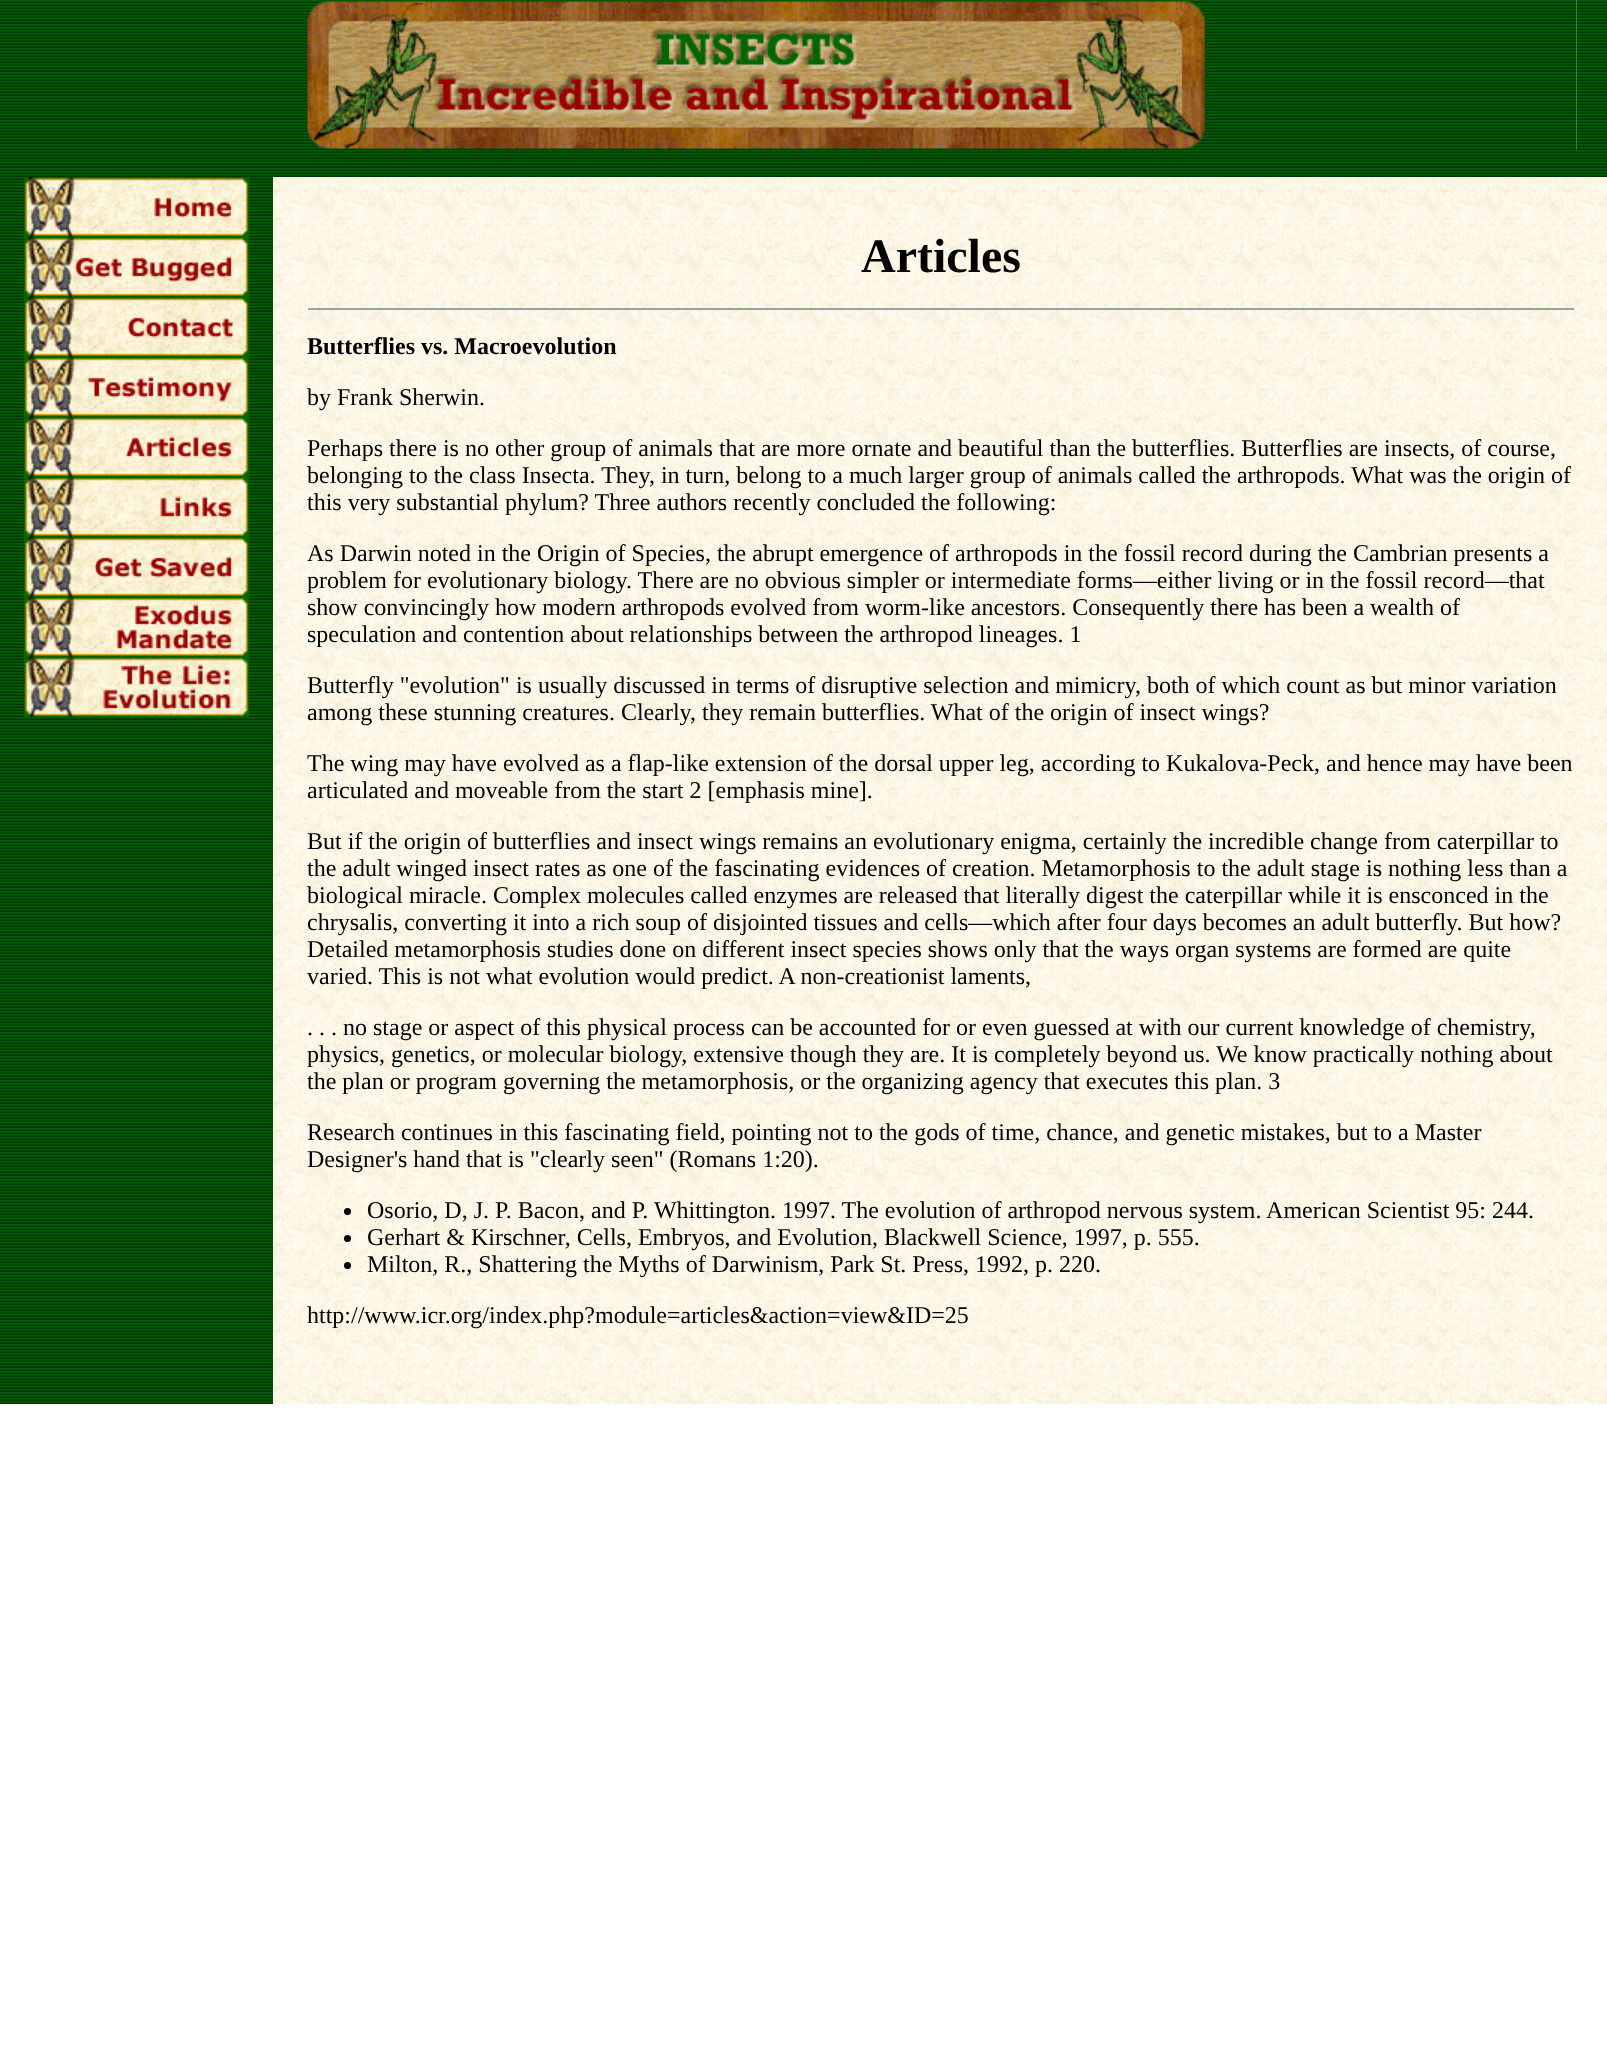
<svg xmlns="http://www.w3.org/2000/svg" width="1607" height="2055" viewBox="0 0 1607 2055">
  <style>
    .t1 { font: bold 48px Liberation Serif; fill: #000; }
    .t2 { font: bold 24px Liberation Serif; fill: #000; }
    .t3 { font: 24px Liberation Serif; fill: #000; }
  </style>
  <rect width="100%" height="100%" fill="#fff"/>
  <image x="0" y="0" width="306" height="150" href="images/1.png"/>
  <image x="306" y="0" width="1271" height="150" href="images/2.png"/>
  <image x="307" y="1" width="898" height="148" href="images/3.png"/>
  <image x="1576" y="0" width="31" height="150" href="images/4.png"/>
  <image x="0" y="150" width="273" height="27" href="images/5.png"/>
  <image x="273" y="150" width="1334" height="27" href="images/6.png"/>
  <image x="0" y="177" width="273" height="1227" href="images/7.png"/>
  <image x="24" y="177" width="225" height="60" href="images/8.png"/>
  <image x="24" y="237" width="225" height="60" href="images/9.png"/>
  <image x="24" y="297" width="225" height="60" href="images/10.png"/>
  <image x="24" y="357" width="225" height="60" href="images/11.png"/>
  <image x="24" y="417" width="225" height="60" href="images/12.png"/>
  <image x="24" y="477" width="225" height="60" href="images/13.png"/>
  <image x="24" y="537" width="225" height="60" href="images/14.png"/>
  <image x="24" y="597" width="225" height="60" href="images/15.png"/>
  <image x="24" y="657" width="225" height="60" href="images/16.png"/>
  <image x="273" y="177" width="1334" height="1227" href="images/17.png"/>
  <text x="861" y="272" class="t1">Articles</text>
  <rect x="308" y="308" width="1267" height="2" fill="#9f9f9f"/>
  <rect x="1574" y="308" width="2" height="2" fill="#eee"/>
  <text x="307" y="354" class="t2">Butterflies vs. Macroevolution</text>
  <text x="307" y="405" class="t3">by Frank Sherwin.</text>
  <text x="307" y="456" class="t3">Perhaps there is no other group of animals that are more ornate and beautiful than the butterflies. Butterflies are insects, of course,</text>
  <text x="307" y="483" class="t3">belonging to the class Insecta. They, in turn, belong to a much larger group of animals called the arthropods. What was the origin of</text>
  <text x="307" y="510" class="t3">this very substantial phylum? Three authors recently concluded the following:</text>
  <text x="307" y="561" class="t3">As Darwin noted in the Origin of Species, the abrupt emergence of arthropods in the fossil record during the Cambrian presents a</text>
  <text x="307" y="588" class="t3">problem for evolutionary biology. There are no obvious simpler or intermediate forms—either living or in the fossil record—that</text>
  <text x="307" y="615" class="t3">show convincingly how modern arthropods evolved from worm-like ancestors. Consequently there has been a wealth of</text>
  <text x="307" y="642" class="t3">speculation and contention about relationships between the arthropod lineages. 1</text>
  <text x="307" y="693" class="t3">Butterfly "evolution" is usually discussed in terms of disruptive selection and mimicry, both of which count as but minor variation</text>
  <text x="307" y="720" class="t3">among these stunning creatures. Clearly, they remain butterflies. What of the origin of insect wings?</text>
  <text x="307" y="771" class="t3">The wing may have evolved as a flap-like extension of the dorsal upper leg, according to Kukalova-Peck, and hence may have been</text>
  <text x="307" y="798" class="t3">articulated and moveable from the start 2 [emphasis mine].</text>
  <text x="307" y="849" class="t3">But if the origin of butterflies and insect wings remains an evolutionary enigma, certainly the incredible change from caterpillar to</text>
  <text x="307" y="876" class="t3">the adult winged insect rates as one of the fascinating evidences of creation. Metamorphosis to the adult stage is nothing less than a</text>
  <text x="307" y="903" class="t3">biological miracle. Complex molecules called enzymes are released that literally digest the caterpillar while it is ensconced in the</text>
  <text x="307" y="930" class="t3">chrysalis, converting it into a rich soup of disjointed tissues and cells—which after four days becomes an adult butterfly. But how?</text>
  <text x="307" y="957" class="t3">Detailed metamorphosis studies done on different insect species shows only that the ways organ systems are formed are quite</text>
  <text x="307" y="984" class="t3">varied. This is not what evolution would predict. A non-creationist laments,</text>
  <text x="307" y="1035" class="t3">. . . no stage or aspect of this physical process can be accounted for or even guessed at with our current knowledge of chemistry,</text>
  <text x="307" y="1062" class="t3">physics, genetics, or molecular biology, extensive though they are. It is completely beyond us. We know practically nothing about</text>
  <text x="307" y="1089" class="t3">the plan or program governing the metamorphosis, or the organizing agency that executes this plan. 3</text>
  <text x="307" y="1140" class="t3">Research continues in this fascinating field, pointing not to the gods of time, chance, and genetic mistakes, but to a Master</text>
  <text x="307" y="1167" class="t3">Designer's hand that is "clearly seen" (Romans 1:20).</text>
  <circle cx="347.5" cy="1211.5" r="3.5" fill="#000"/>
  <text x="367" y="1218" class="t3">Osorio, D, J. P. Bacon, and P. Whittington. 1997. The evolution of arthropod nervous system. American Scientist 95: 244.</text>
  <circle cx="347.5" cy="1238.5" r="3.5" fill="#000"/>
  <text x="367" y="1245" class="t3">Gerhart &amp; Kirschner, Cells, Embryos, and Evolution, Blackwell Science, 1997, p. 555.</text>
  <circle cx="347.5" cy="1265.5" r="3.5" fill="#000"/>
  <text x="367" y="1272" class="t3">Milton, R., Shattering the Myths of Darwinism, Park St. Press, 1992, p. 220.</text>
  <text x="307" y="1323" class="t3">http://www.icr.org/index.php?module=articles&amp;action=view&amp;ID=25</text>
</svg>
